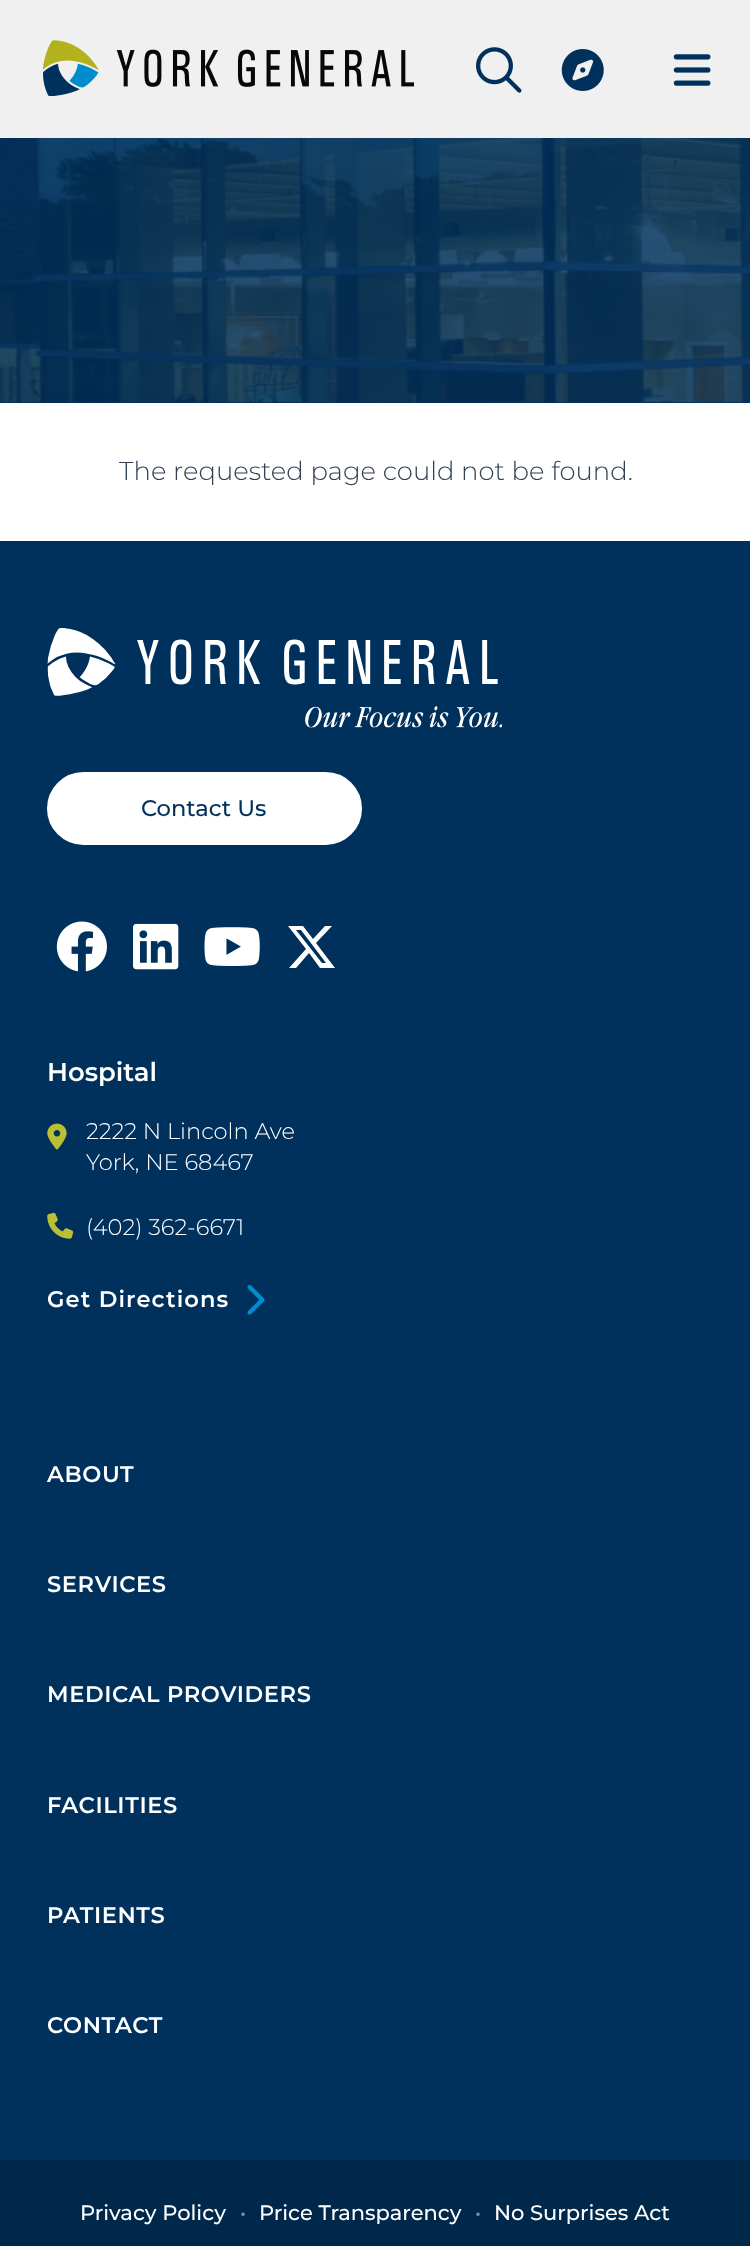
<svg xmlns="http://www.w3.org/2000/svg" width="750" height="2246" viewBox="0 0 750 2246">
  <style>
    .t1 { font: 300 25.9px Montserrat; fill: #334155; }
    .t2 { font: 500 22.6px Montserrat; fill: #00315d; }
    .t3 { font: 600 25.9px Montserrat; fill: #fff; }
    .t4 { font: 300 22.6px Montserrat; fill: #fff; }
    .t5 { font: 600 22.6px Montserrat; letter-spacing: 1.1px; fill: #fff; }
    .t6 { font: 600 22.6px Montserrat; letter-spacing: 0.6px; fill: #fff; }
    .t7 { font: 500 21px Montserrat; fill: #fff; }
    .t8 { font: 600 21px Montserrat; fill: #8094a5; }
  </style>
  <rect width="100%" height="100%" fill="#00315d"/>
  <rect x="0" y="0" width="750" height="138" fill="#f0f0f0"/>
  <image x="43" y="40" width="371" height="56" href="images/1.png"/>
  <image x="476" y="47" width="46" height="46" href="images/2.png"/>
  <image x="561" y="49" width="43" height="42" href="images/3.png"/>
  <image x="673" y="54" width="38" height="32" href="images/4.png"/>
  <image x="0" y="138" width="750" height="265" href="images/5.png"/>
  <rect x="0" y="403" width="750" height="138" fill="#fff"/>
  <text x="119" y="480" class="t1">The requested page could not be found.</text>
  <image x="47" y="628" width="455" height="100" href="images/6.png"/>
  <rect x="49.5" y="774.5" width="310" height="68" rx="34" fill="#fff" stroke="#fff" stroke-width="5"/>
  <text x="141" y="816" class="t2">Contact Us</text>
  <image x="56" y="921" width="51" height="51" href="images/7.png"/>
  <image x="133" y="923" width="46" height="47" href="images/8.png"/>
  <image x="204" y="927" width="56" height="39" href="images/9.png"/>
  <path d="M325 926H332L316 943L335 968H320L309 953L296 968H289L306 949L288 926H303L313 939ZM322 963H326L301 930H296Z" fill="#fff"/>
  <text x="47" y="1081" class="t3">Hospital</text>
  <image x="47" y="1123" width="20" height="27" href="images/10.png"/>
  <text x="86" y="1139" class="t4">2222 N Lincoln Ave</text>
  <text x="86" y="1170" class="t4">York, NE 68467</text>
  <image x="47" y="1212" width="27" height="27" href="images/11.png"/>
  <text x="86" y="1235" class="t4">(402) 362-6671</text>
  <text x="47" y="1307" class="t5">Get Directions</text>
  <image x="247" y="1284" width="18" height="31" href="images/12.png"/>
  <text x="47" y="1482" class="t6">ABOUT</text>
  <text x="47" y="1592" class="t6">SERVICES</text>
  <text x="47" y="1702" class="t6">MEDICAL PROVIDERS</text>
  <text x="47" y="1813" class="t6">FACILITIES</text>
  <text x="47" y="1923" class="t6">PATIENTS</text>
  <text x="47" y="2033" class="t6">CONTACT</text>
  <rect x="0" y="2160" width="750" height="86" fill="#00284b"/>
  <text x="80" y="2220" class="t7">Privacy Policy</text>
  <text x="240" y="2220" class="t8">·</text>
  <text x="259" y="2220" class="t7">Price Transparency</text>
  <text x="475" y="2220" class="t8">·</text>
  <text x="494" y="2220" class="t7">No Surprises Act</text>
</svg>
